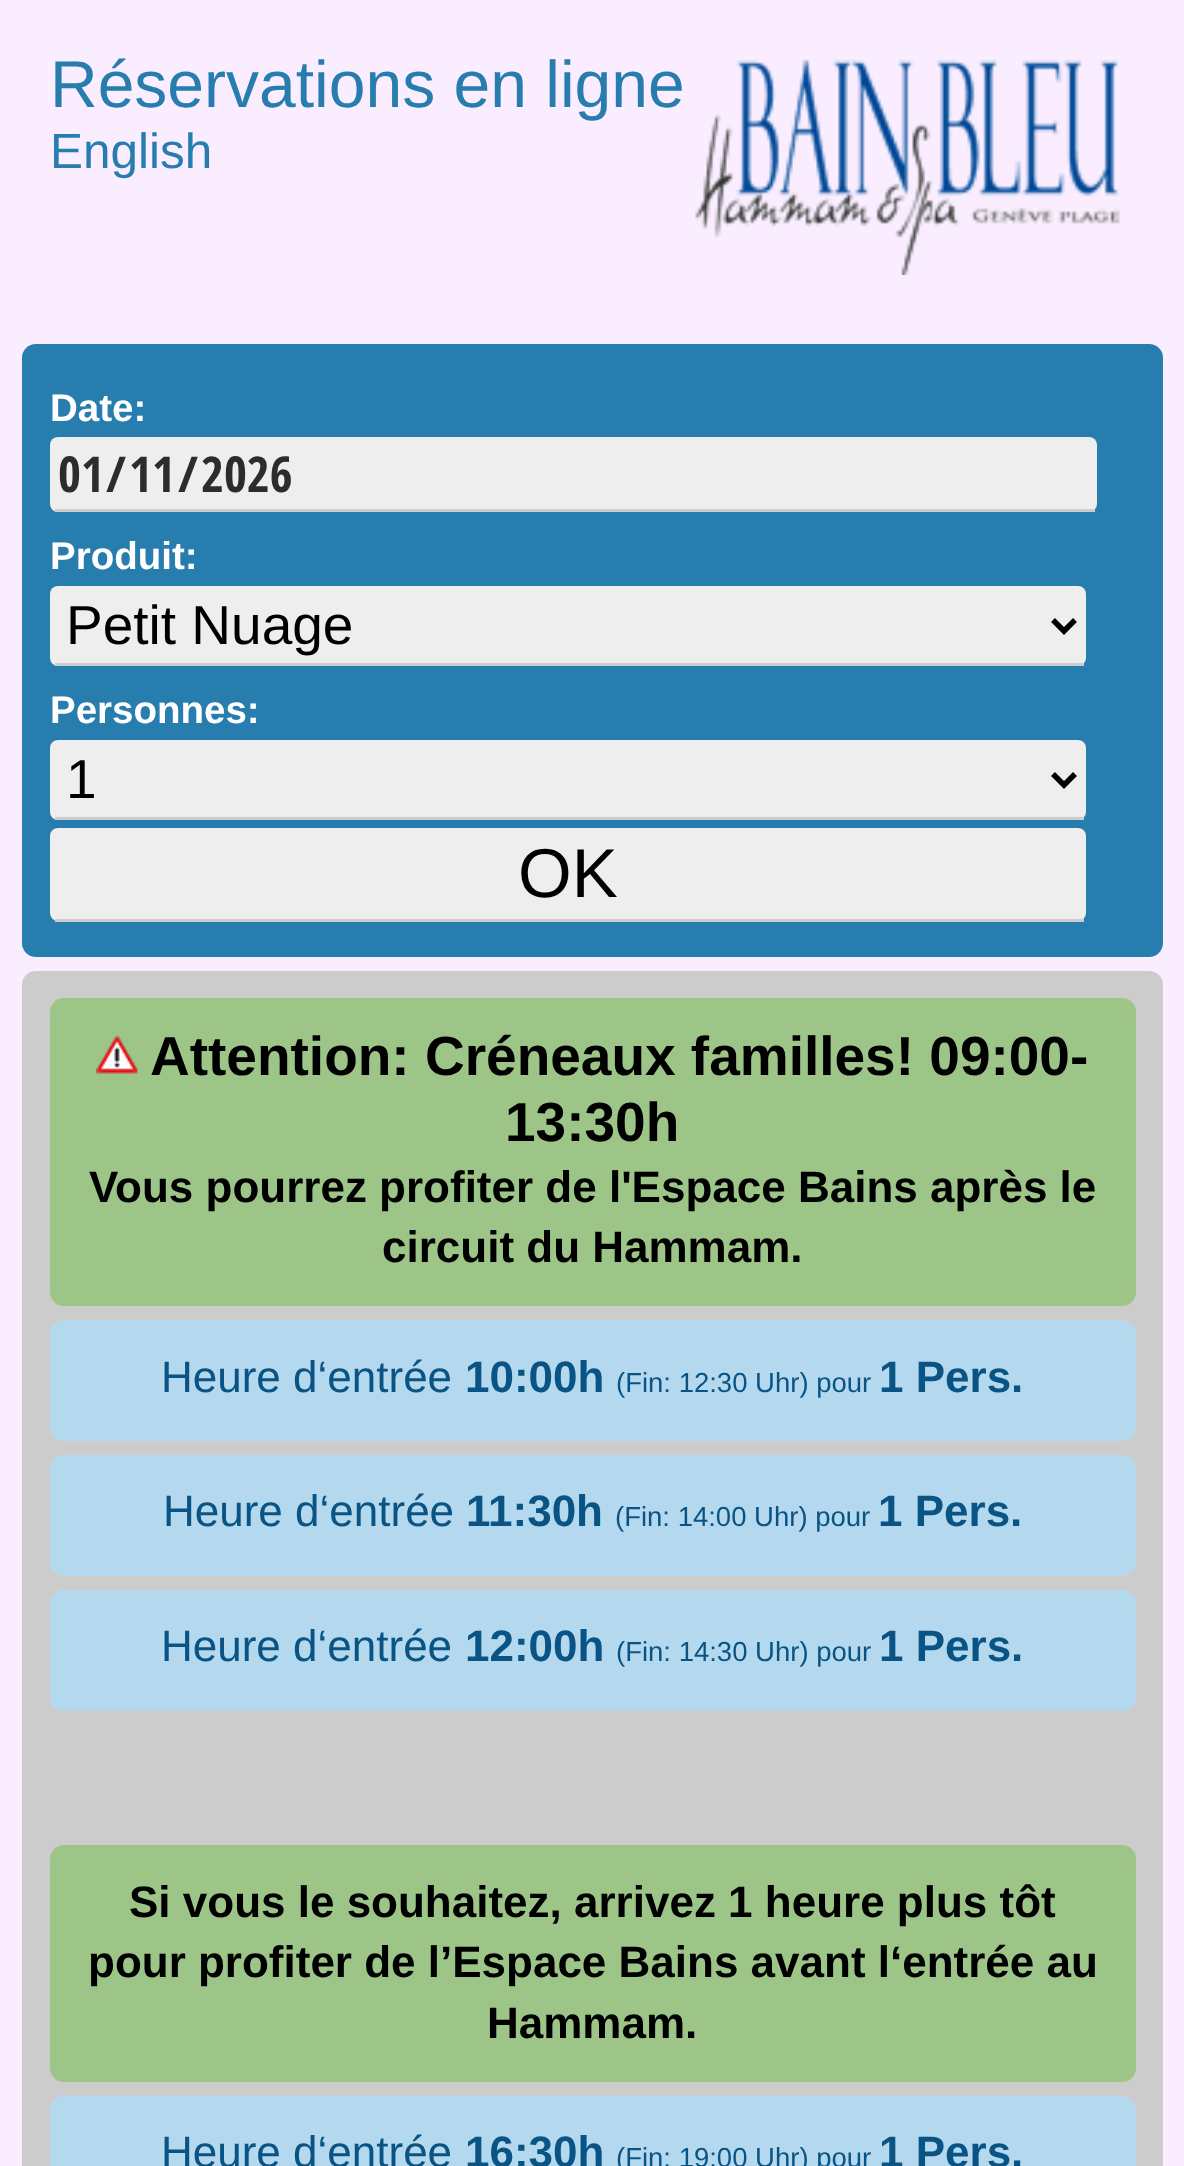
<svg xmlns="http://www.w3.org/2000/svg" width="1184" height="2166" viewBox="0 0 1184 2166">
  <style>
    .t1 { font: 66px Liberation Sans; fill: #277dad; }
    .t2 { font: 49.5px Liberation Sans; fill: #277dad; }
    .t3 { font: bold 38.5px Liberation Sans; fill: #fff; }
    .t4 { font: bold 49.5px Open Sans Condensed; fill: #2c2c2c; }
    .t5 { font: 55px Liberation Sans; fill: #000; }
    .t6 { font: 69px Liberation Sans; fill: #000; }
    .t7 { font: bold 55px Liberation Sans; fill: #000; }
    .t8 { font: bold 44px Liberation Sans; fill: #000; }
    .t9 { font: 44px Liberation Sans; fill: #095484; }
    .t10 { font: bold 44px Liberation Sans; fill: #095484; }
    .t11 { font: 27.5px Liberation Sans; fill: #095484; }
  </style>
  <rect width="100%" height="100%" fill="#f9edff"/>
  <text x="50" y="107" class="t1">Réservations en ligne</text>
  <text x="50" y="168" class="t2">English</text>
  <image x="695" y="59" width="425" height="216" href="images/1.png"/>
  <rect x="22" y="344" width="1141" height="613" rx="14" fill="#277dad"/>
  <text x="50" y="421" class="t3">Date:</text>
  <rect x="50" y="437" width="1047" height="75" rx="8" fill="#eee"/>
  <rect x="55" y="509" width="1040" height="3" fill="#ccc"/>
  <text x="58" y="492" class="t4">01</text>
  <text x="106" y="492" class="t4">/</text>
  <text x="129" y="492" class="t4">11</text>
  <text x="178" y="492" class="t4">/</text>
  <text x="201" y="492" class="t4">2026</text>
  <text x="50" y="569" class="t3">Produit:</text>
  <rect x="50" y="586" width="1036" height="80" rx="8" fill="#eee"/>
  <rect x="55" y="663" width="1029" height="3" fill="#ccc"/>
  <path d="M1053 620L1064 631L1075 620" fill="none" stroke="#000" stroke-width="5.5"/>
  <text x="66" y="644" class="t5">Petit Nuage</text>
  <text x="50" y="723" class="t3">Personnes:</text>
  <rect x="50" y="740" width="1036" height="80" rx="8" fill="#eee"/>
  <rect x="55" y="817" width="1029" height="3" fill="#ccc"/>
  <path d="M1053 774L1064 785L1075 774" fill="none" stroke="#000" stroke-width="5.5"/>
  <text x="66" y="798" class="t5">1</text>
  <rect x="50" y="828" width="1036" height="93" rx="8" fill="#eee"/>
  <rect x="55" y="919" width="1029" height="3" fill="#ccc"/>
  <text x="518" y="897" class="t6">OK</text>
  <rect x="22" y="971" width="1141" height="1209" rx="14" fill="#ccc"/>
  <rect x="50" y="998" width="1086" height="308" rx="14" fill="#9ec588"/>
  <image x="96" y="1035" width="42" height="39" href="images/2.png"/>
  <text x="150" y="1075" class="t7">Attention: Créneaux familles! 09:00-</text>
  <text x="505" y="1141" class="t7">13:30h</text>
  <text x="89" y="1202" class="t8">Vous pourrez profiter de l'Espace Bains après le</text>
  <text x="382" y="1262" class="t8">circuit du Hammam.</text>
  <rect x="50" y="1320" width="1086" height="121" rx="14" fill="#b4d9ee"/>
  <text x="161" y="1392" class="t9">Heure d‘entrée</text>
  <text x="465" y="1392" class="t10">10:00h</text>
  <text x="616" y="1392" class="t11">(Fin: 12:30 Uhr) pour</text>
  <text x="879" y="1392" class="t10">1 Pers.</text>
  <rect x="50" y="1455" width="1086" height="121" rx="14" fill="#b4d9ee"/>
  <text x="163" y="1526" class="t9">Heure d‘entrée</text>
  <text x="466" y="1526" class="t10">11:30h</text>
  <text x="615" y="1526" class="t11">(Fin: 14:00 Uhr) pour</text>
  <text x="878" y="1526" class="t10">1 Pers.</text>
  <rect x="50" y="1590" width="1086" height="121" rx="14" fill="#b4d9ee"/>
  <text x="161" y="1661" class="t9">Heure d‘entrée</text>
  <text x="465" y="1661" class="t10">12:00h</text>
  <text x="616" y="1661" class="t11">(Fin: 14:30 Uhr) pour</text>
  <text x="879" y="1661" class="t10">1 Pers.</text>
  <rect x="50" y="1845" width="1086" height="237" rx="14" fill="#9ec588"/>
  <text x="129" y="1917" class="t8">Si vous le souhaitez, arrivez 1 heure plus tôt</text>
  <text x="88" y="1977" class="t8">pour profiter de l’Espace Bains avant l‘entrée au</text>
  <text x="487" y="2038" class="t8">Hammam.</text>
  <rect x="50" y="2096" width="1086" height="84" rx="14" fill="#b4d9ee"/>
  <text x="161" y="2167" class="t9">Heure d‘entrée</text>
  <text x="465" y="2167" class="t10">16:30h</text>
  <text x="616" y="2167" class="t11">(Fin: 19:00 Uhr) pour</text>
  <text x="879" y="2167" class="t10">1 Pers.</text>
</svg>
